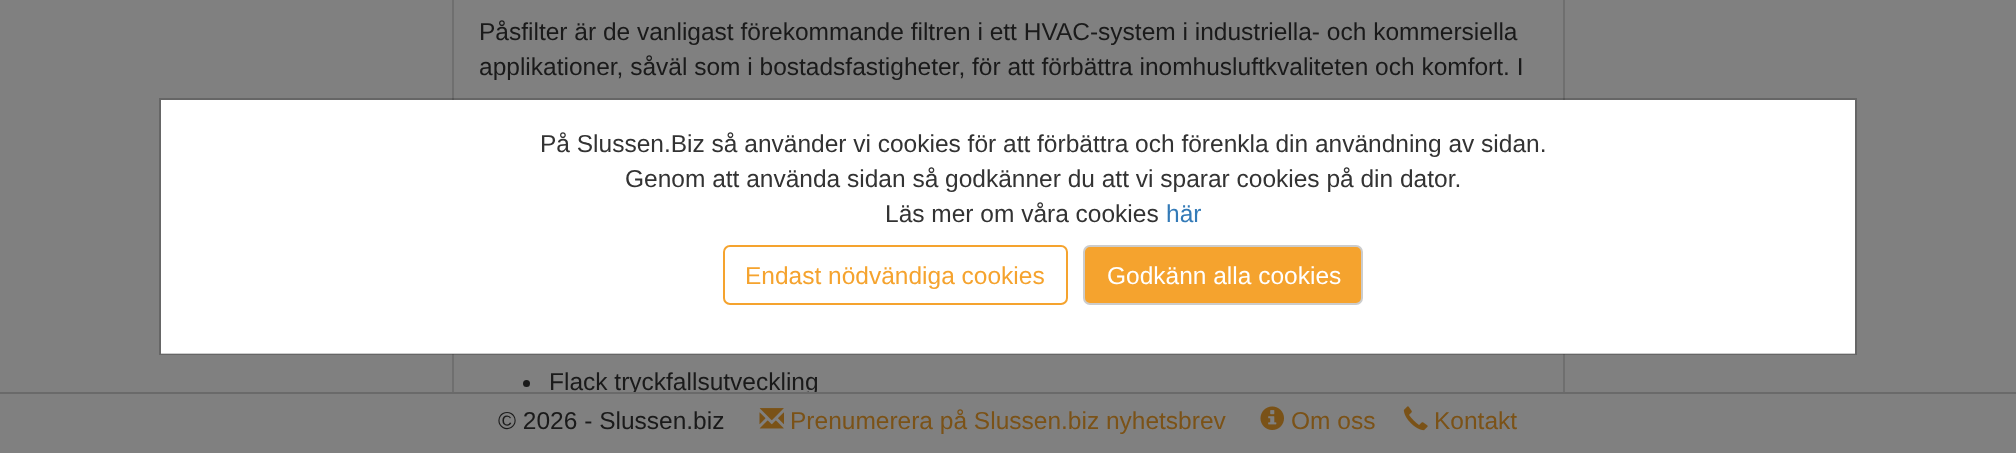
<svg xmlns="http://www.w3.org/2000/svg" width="2016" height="453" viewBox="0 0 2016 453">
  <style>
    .t1 { font: 24.5px Liberation Sans; fill: #1a1a1a; }
    .t2 { font: 24.5px Liberation Sans; fill: #7b5217; }
    .t3 { font: 24.5px Liberation Sans; fill: #333; }
    .t4 { font: 24.5px Liberation Sans; fill: #337ab7; }
    .t5 { font: 24.5px Liberation Sans; fill: #f5a32e; }
    .t6 { font: 24.5px Liberation Sans; fill: #fff; }
  </style>
  <rect width="100%" height="100%" fill="#808080"/>
  <rect x="453" y="-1" width="1111" height="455" fill="none" stroke="#6f6f6f" stroke-width="2"/>
  <text x="479" y="40" class="t1">Påsfilter är de vanligast förekommande filtren i ett HVAC-system i industriella- och kommersiella</text>
  <text x="479" y="75" class="t1">applikationer, såväl som i bostadsfastigheter, för att förbättra inomhusluftkvaliteten och komfort. I</text>
  <circle cx="526.5" cy="383.5" r="3.5" fill="#1a1a1a"/>
  <text x="549" y="390" class="t1">Flack tryckfallsutveckling</text>
  <rect x="452" y="394" width="1113" height="59" fill="#808080"/>
  <rect x="0" y="392" width="2016" height="2" fill="#6a6a6a"/>
  <text x="498" y="429" class="t1">© 2026 - Slussen.biz</text>
  <image x="759" y="408" width="25" height="21" href="images/1.png"/>
  <text x="790" y="429" class="t2">Prenumerera på Slussen.biz nyhetsbrev</text>
  <image x="1260" y="406" width="24" height="24" href="images/2.png"/>
  <text x="1291" y="429" class="t2">Om oss</text>
  <image x="1403" y="406" width="25" height="25" href="images/3.png"/>
  <text x="1434" y="429" class="t2">Kontakt</text>
  <rect x="161" y="100" width="1694" height="254" fill="#fff"/>
  <rect x="160" y="99" width="1696" height="255" fill="none" stroke="#00000033" stroke-width="2"/>
  <text x="540" y="152" class="t3">På Slussen.Biz så använder vi cookies för att förbättra och förenkla din användning av sidan.</text>
  <text x="625" y="187" class="t3">Genom att använda sidan så godkänner du att vi sparar cookies på din dator.</text>
  <text x="885" y="222" class="t3">Läs mer om våra cookies</text>
  <text x="1166" y="222" class="t4">här</text>
  <rect x="724" y="246" width="343" height="58" rx="6" fill="none" stroke="#f5a32e" stroke-width="2"/>
  <text x="745" y="284" class="t5">Endast nödvändiga cookies</text>
  <rect x="1084" y="246" width="278" height="58" rx="6" fill="#f5a32e" stroke="#ccc" stroke-width="2"/>
  <text x="1107" y="284" class="t6">Godkänn alla cookies</text>
</svg>
